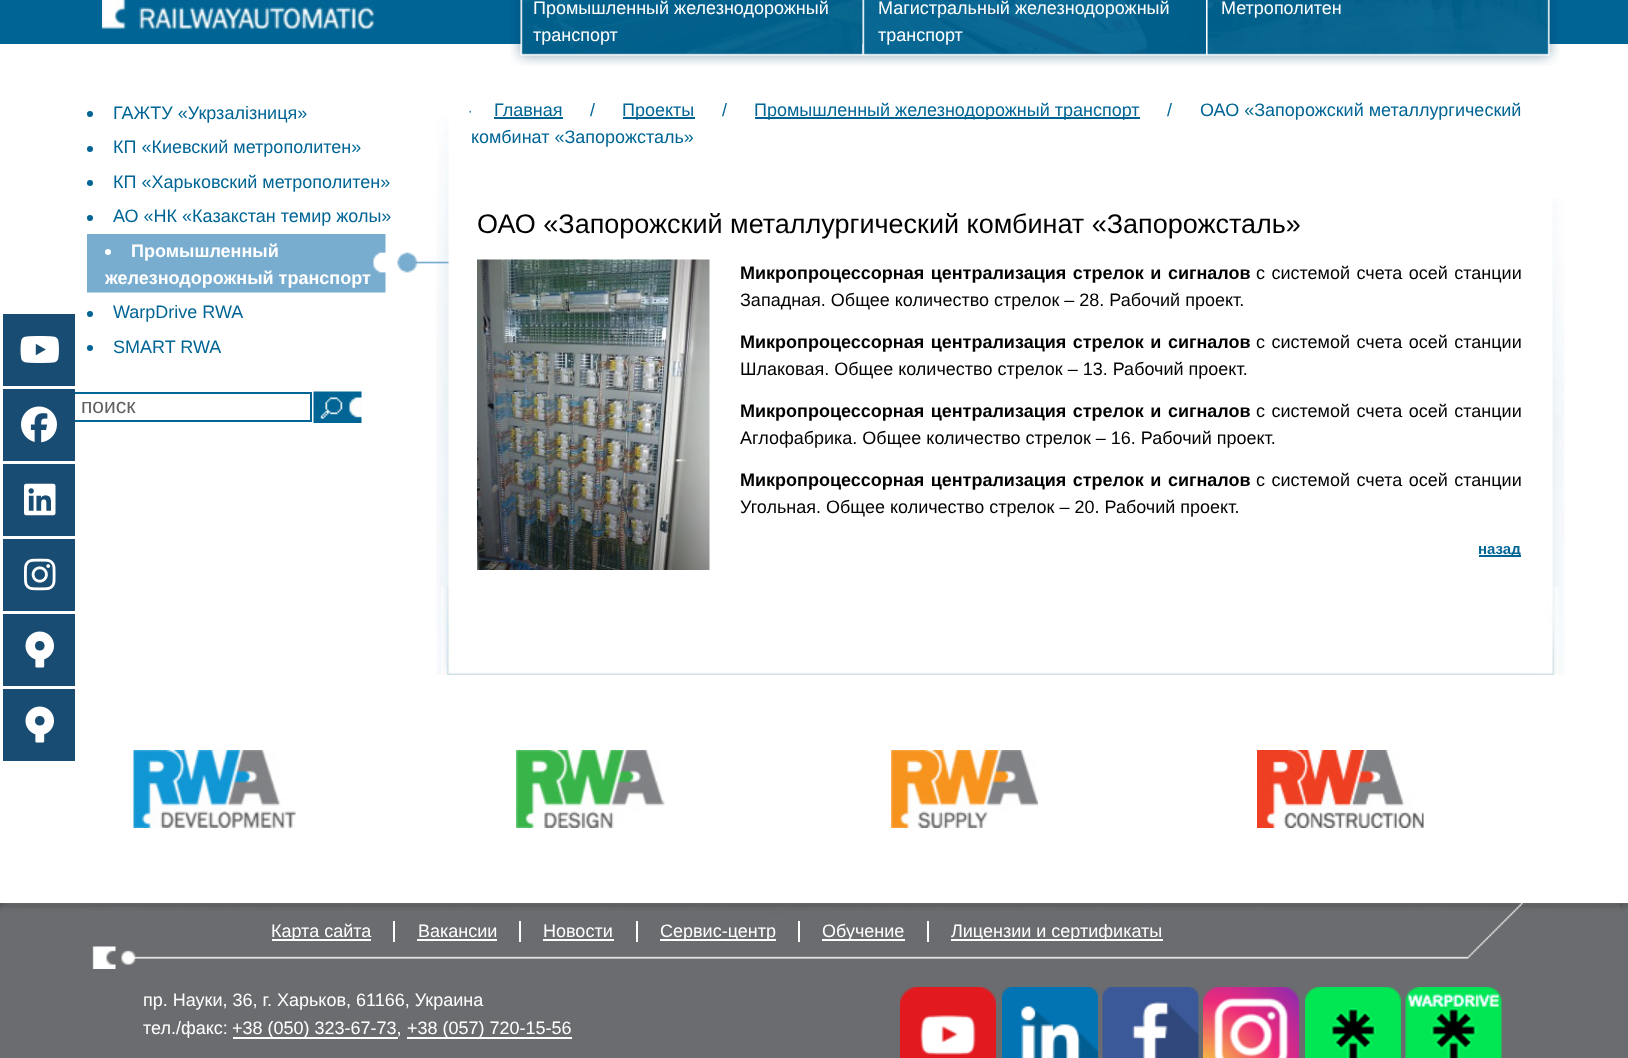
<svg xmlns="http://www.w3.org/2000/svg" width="1628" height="1058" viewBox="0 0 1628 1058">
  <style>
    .t1 { font: 18px Liberation Sans; fill: #fff; }
    .t2 { font: 18px Liberation Sans; fill: #006595; }
    .t3 { font: bold 18px Liberation Sans; fill: #fff; }
    .t4 { font: 21px Liberation Sans; fill: #626262; }
    .t5 { font: 27px Liberation Sans; fill: #000; }
    .t6 { font: bold 18px Liberation Sans; fill: #000; }
    .t7 { font: 18px Liberation Sans; fill: #000; }
    .t8 { font: bold 15px Liberation Sans; fill: #006595; }
  </style>
  <rect width="100%" height="100%" fill="#fff"/>
  <rect x="0" y="0" width="1628" height="44" fill="#006495"/>
  <image x="102" y="0" width="272" height="29" href="images/1.png"/>
  <image x="510" y="0" width="353" height="66" href="images/2.png"/>
  <text x="533" y="14" class="t1">Промышленный железнодорожный</text>
  <text x="533" y="41" class="t1">транспорт</text>
  <image x="862" y="0" width="344" height="66" href="images/3.png"/>
  <text x="878" y="14" class="t1">Магистральный железнодорожный</text>
  <text x="878" y="41" class="t1">транспорт</text>
  <image x="1206" y="0" width="354" height="66" href="images/4.png"/>
  <text x="1221" y="14" class="t1">Метрополитен</text>
  <circle cx="90" cy="114" r="3" fill="#006595"/>
  <text x="113" y="119" class="t2">ГАЖТУ «Укрзалізниця»</text>
  <circle cx="90" cy="149" r="3" fill="#006595"/>
  <text x="113" y="153" class="t2">КП «Киевский метрополитен»</text>
  <circle cx="90" cy="183" r="3" fill="#006595"/>
  <text x="113" y="188" class="t2">КП «Харьковский метрополитен»</text>
  <circle cx="90" cy="218" r="3" fill="#006595"/>
  <text x="113" y="222" class="t2">АО «НК «Казакстан темир жолы»</text>
  <image x="436" y="118" width="13" height="557" href="images/7.png"/>
  <image x="87" y="234" width="362" height="59" href="images/5.png"/>
  <circle cx="108" cy="252" r="3" fill="#fff"/>
  <text x="131" y="257" class="t3">Промышленный</text>
  <text x="105" y="284" class="t3">железнодорожный транспорт</text>
  <circle cx="90" cy="314" r="3" fill="#006595"/>
  <text x="113" y="318" class="t2">WarpDrive RWA</text>
  <circle cx="90" cy="348" r="3" fill="#006595"/>
  <text x="113" y="353" class="t2">SMART RWA</text>
  <rect x="66" y="393" width="245" height="28" fill="none" stroke="#006595" stroke-width="2"/>
  <text x="81" y="413" class="t4">поиск</text>
  <image x="313" y="391" width="49" height="32" href="images/6.png"/>
  <image x="469" y="110" width="2" height="3" href="images/8.png"/>
  <text x="494" y="116" class="t2">Главная</text>
  <rect x="494" y="117" width="69" height="2" fill="#006393"/>
  <text x="590" y="116" class="t2">/</text>
  <rect x="623" y="117" width="72" height="2" fill="#006393"/>
  <text x="622" y="116" class="t2">Проекты</text>
  <text x="722" y="116" class="t2">/</text>
  <rect x="755" y="117" width="385" height="2" fill="#006393"/>
  <text x="754" y="116" class="t2">Промышленный железнодорожный транспорт</text>
  <text x="1167" y="116" class="t2">/</text>
  <text x="1200" y="116" class="t2">ОАО «Запорожский металлургический</text>
  <text x="471" y="143" class="t2">комбинат «Запорожсталь»</text>
  <image x="1552" y="198" width="13" height="477" href="images/9.png"/>
  <image x="441" y="586" width="1118" height="89" href="images/10.png"/>
  <text x="477" y="233" class="t5">ОАО «Запорожский металлургический комбинат «Запорожсталь»</text>
  <image x="477" y="259" width="233" height="311" href="images/11.png"/>
  <text x="740" y="279" word-spacing="1.5" class="t6">Микропроцессорная централизация стрелок и сигналов</text>
  <text x="1256" y="279" word-spacing="1.5" class="t7">с системой счета осей станции</text>
  <text x="740" y="306" class="t7">Западная. Общее количество стрелок – 28. Рабочий проект.</text>
  <text x="740" y="348" word-spacing="1.5" class="t6">Микропроцессорная централизация стрелок и сигналов</text>
  <text x="1256" y="348" word-spacing="1.5" class="t7">с системой счета осей станции</text>
  <text x="740" y="375" class="t7">Шлаковая. Общее количество стрелок – 13. Рабочий проект.</text>
  <text x="740" y="417" word-spacing="1.5" class="t6">Микропроцессорная централизация стрелок и сигналов</text>
  <text x="1256" y="417" word-spacing="1.5" class="t7">с системой счета осей станции</text>
  <text x="740" y="444" class="t7">Аглофабрика. Общее количество стрелок – 16. Рабочий проект.</text>
  <text x="740" y="486" word-spacing="1.5" class="t6">Микропроцессорная централизация стрелок и сигналов</text>
  <text x="1256" y="486" word-spacing="1.5" class="t7">с системой счета осей станции</text>
  <text x="740" y="513" class="t7">Угольная. Общее количество стрелок – 20. Рабочий проект.</text>
  <rect x="1479" y="555" width="42" height="2" fill="#006595"/>
  <text x="1478" y="554" class="t8">назад</text>
  <image x="133" y="750" width="163" height="78" href="images/12.png"/>
  <image x="516" y="750" width="149" height="78" href="images/13.png"/>
  <image x="891" y="750" width="147" height="78" href="images/14.png"/>
  <image x="1257" y="750" width="167" height="78" href="images/15.png"/>
  <image x="0" y="903" width="1628" height="155" href="images/16.png"/>
  <rect x="3" y="314" width="72" height="72" fill="#184c72"/>
  <image x="20" y="336" width="39" height="27" href="images/17.png"/>
  <rect x="3" y="389" width="72" height="72" fill="#184c72"/>
  <image x="21" y="406" width="36" height="37" href="images/18.png"/>
  <rect x="3" y="464" width="72" height="72" fill="#184c72"/>
  <image x="24" y="483" width="32" height="33" href="images/19.png"/>
  <rect x="3" y="539" width="72" height="72" fill="#184c72"/>
  <image x="24" y="558" width="32" height="33" href="images/20.png"/>
  <rect x="3" y="614" width="72" height="72" fill="#184c72"/>
  <image x="25" y="631" width="29" height="37" href="images/21.png"/>
  <rect x="3" y="689" width="72" height="72" fill="#184c72"/>
  <image x="25" y="706" width="29" height="37" href="images/21.png"/>
  <image x="92" y="903" width="1431" height="66" href="images/22.png"/>
  <rect x="272" y="939" width="99" height="2" fill="#fff"/>
  <text x="271" y="937" class="t1">Карта сайта</text>
  <rect x="393" y="921" width="2" height="21" fill="#fff"/>
  <text x="418" y="937" class="t1">Вакансии</text>
  <rect x="519" y="921" width="2" height="21" fill="#fff"/>
  <rect x="417" y="939" width="80" height="2" fill="#fff"/>
  <text x="543" y="937" class="t1">Новости</text>
  <rect x="636" y="921" width="2" height="21" fill="#fff"/>
  <rect x="543" y="939" width="71" height="2" fill="#fff"/>
  <rect x="660" y="939" width="116" height="2" fill="#fff"/>
  <text x="660" y="937" class="t1">Сервис-центр</text>
  <rect x="798" y="921" width="2" height="21" fill="#fff"/>
  <rect x="822" y="939" width="83" height="2" fill="#fff"/>
  <text x="822" y="937" class="t1">Обучение</text>
  <rect x="927" y="921" width="2" height="21" fill="#fff"/>
  <rect x="951" y="939" width="212" height="2" fill="#fff"/>
  <text x="951" y="937" class="t1">Лицензии и сертификаты</text>
  <text x="143" y="1006" class="t1">пр. Науки, 36, г. Харьков, 61166, Украина</text>
  <text x="143" y="1034" class="t1">тел./факс:</text>
  <rect x="233" y="1037" width="165" height="2" fill="#fff"/>
  <text x="232" y="1034" class="t1">+38 (050) 323-67-73,</text>
  <rect x="407" y="1037" width="165" height="2" fill="#fff"/>
  <text x="407" y="1034" class="t1">+38 (057) 720-15-56</text>
  <image x="900" y="987" width="96" height="71" href="images/23.png"/>
  <image x="1002" y="987" width="96" height="71" href="images/24.png"/>
  <image x="1102" y="987" width="97" height="71" href="images/25.png"/>
  <image x="1203" y="987" width="96" height="71" href="images/26.png"/>
  <image x="1305" y="987" width="96" height="71" href="images/27.png"/>
  <image x="1405" y="987" width="97" height="71" href="images/28.png"/>
</svg>
